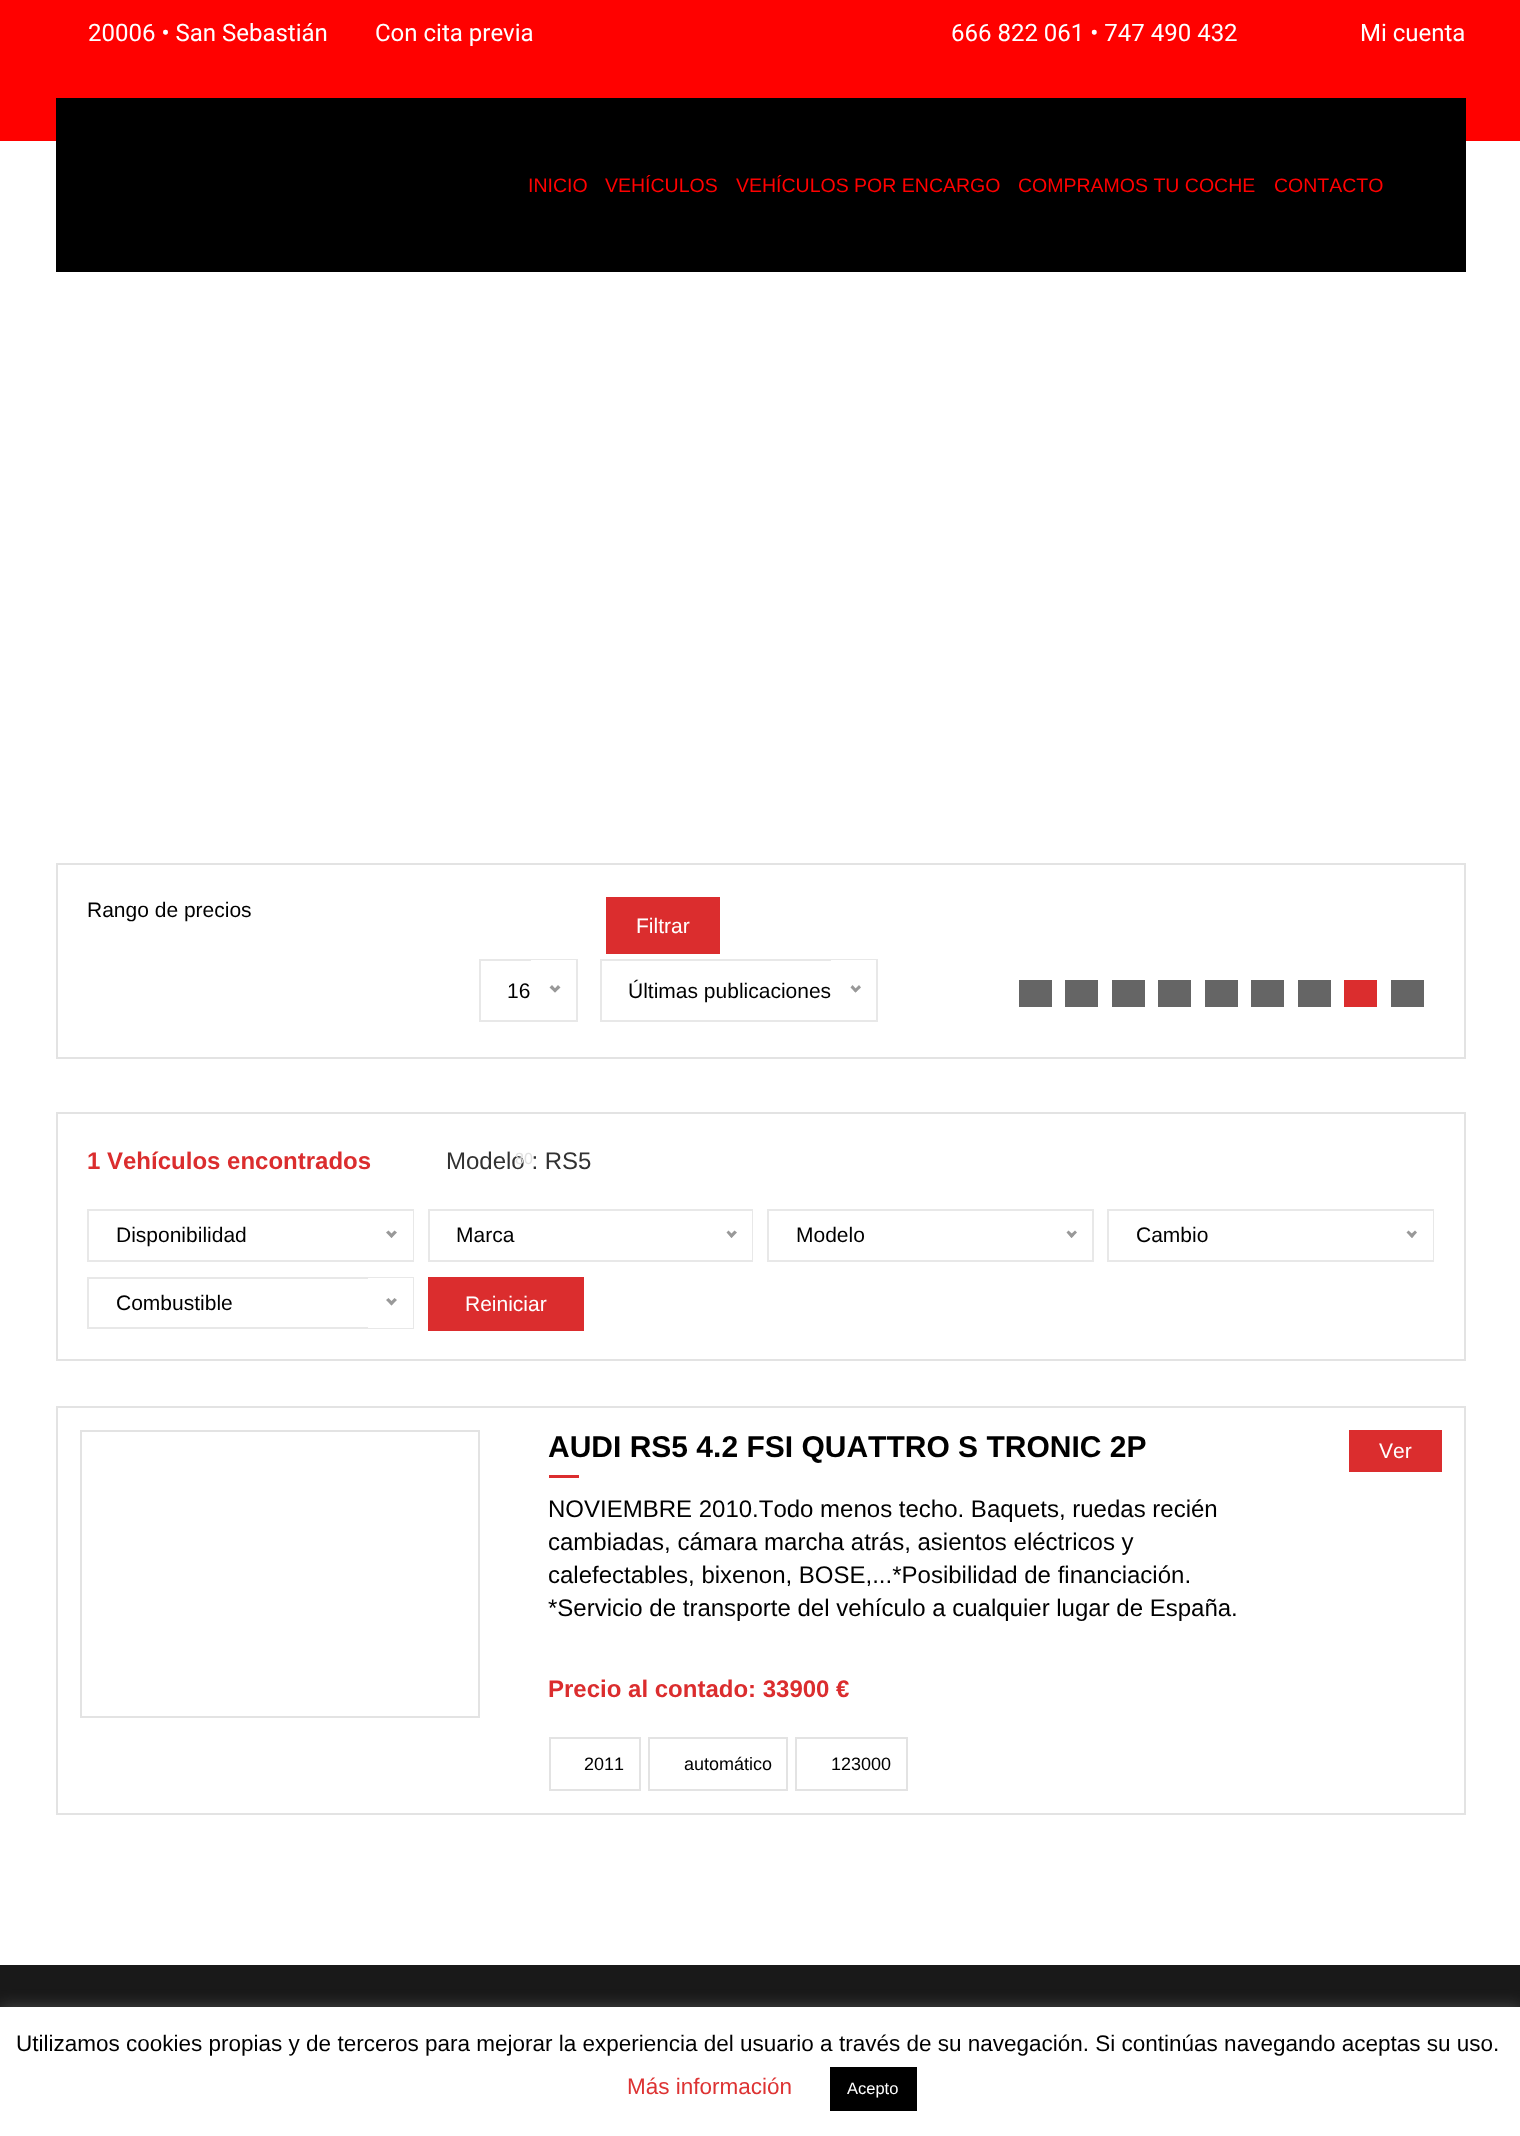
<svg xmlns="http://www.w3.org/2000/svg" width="1520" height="2136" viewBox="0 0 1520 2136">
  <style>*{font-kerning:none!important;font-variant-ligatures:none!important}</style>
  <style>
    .t1 { font: 24px Roboto; fill: #fff; }
    .t2 { font: 19.5px Liberation Sans; fill: #ff0100; }
    .t3 { font: 21px Liberation Sans; fill: #000; }
    .t4 { font: 21px Liberation Sans; fill: #fff; }
    .t5 { font: 24px Liberation Sans; fill: #323232; }
    .t6 { font: 16px Liberation Sans; fill: #e1e1e1; }
    .t7 { font: bold 24px Liberation Sans; fill: #db2d2e; }
    .t8 { font: bold 30px Liberation Sans; fill: #000; }
    .t9 { font: 24px Liberation Sans; fill: #000; }
    .t10 { font: 18px Liberation Sans; fill: #000; }
    .t11 { font: 22.5px Liberation Sans; fill: #000; }
    .t12 { font: 22.5px Liberation Sans; fill: #d33; }
    .t13 { font: 16.5px Liberation Sans; fill: #fff; }
  </style>
  <rect width="100%" height="100%" fill="#fff"/>
  <rect x="0" y="1965" width="1520" height="42" fill="#191919"/>
  <rect x="0" y="0" width="1520" height="141" fill="#ff0100"/>
  <text x="88" y="41" class="t1">20006 • San Sebastián</text>
  <text x="375" y="41" class="t1">Con cita previa</text>
  <text x="951" y="41" class="t1">666 822 061 • 747 490 432</text>
  <text x="1360" y="41" class="t1">Mi cuenta</text>
  <rect x="56" y="98" width="1410" height="174" fill="#000"/>
  <text x="528" y="192" class="t2">INICIO</text>
  <text x="605" y="192" class="t2">VEHÍCULOS</text>
  <text x="736" y="192" class="t2">VEHÍCULOS POR ENCARGO</text>
  <text x="1018" y="192" class="t2">COMPRAMOS TU COCHE</text>
  <text x="1274" y="192" class="t2">CONTACTO</text>
  <rect x="57" y="864" width="1408" height="194" fill="none" stroke="#e3e3e3" stroke-width="2"/>
  <text x="87" y="917" class="t3">Rango de precios</text>
  <rect x="606" y="897" width="114" height="57" fill="#db2d2e"/>
  <text x="636" y="933" class="t4">Filtrar</text>
  <rect x="480" y="960" width="97" height="61" fill="none" stroke="#e8e8e8" stroke-width="2"/>
  <rect x="531" y="960" width="45" height="1" fill="#fff"/>
  <text x="507" y="998" class="t3">16</text>
  <path d="M558 985L560.5 987.5L555 992.5L553 990.5Z" fill="#999"/>
  <path d="M552 985L557 990.5L555 992.5L549.5 987.5Z" fill="#999"/>
  <rect x="57" y="1113" width="1408" height="247" fill="none" stroke="#e3e3e3" stroke-width="2"/>
  <text x="446" y="1169" class="t5">Modelo : RS5</text>
  <text x="515" y="1164" class="t6">80</text>
  <rect x="601" y="960" width="276" height="61" fill="none" stroke="#e8e8e8" stroke-width="2"/>
  <rect x="831" y="960" width="45" height="1" fill="#fff"/>
  <text x="628" y="998" class="t3">Últimas publicaciones</text>
  <path d="M859 985L861 987.5L855.5 992.5L853.5 990.5Z" fill="#999"/>
  <path d="M852.5 985L857.5 990.5L855.5 992.5L850.5 987.5Z" fill="#999"/>
  <rect x="1019" y="980" width="33" height="27" fill="#656565"/>
  <rect x="1065" y="980" width="33" height="27" fill="#656565"/>
  <rect x="1112" y="980" width="33" height="27" fill="#656565"/>
  <rect x="1158" y="980" width="33" height="27" fill="#656565"/>
  <rect x="1205" y="980" width="33" height="27" fill="#656565"/>
  <rect x="1251" y="980" width="33" height="27" fill="#656565"/>
  <rect x="1298" y="980" width="33" height="27" fill="#656565"/>
  <rect x="1344" y="980" width="33" height="27" fill="#db2d2e"/>
  <rect x="1391" y="980" width="33" height="27" fill="#656565"/>
  <text x="87" y="1169" class="t7">1 Vehículos encontrados</text>
  <rect x="88" y="1210" width="325" height="51" fill="none" stroke="#e8e8e8" stroke-width="2"/>
  <text x="116" y="1242" class="t3">Disponibilidad</text>
  <path d="M394.5 1230.5L397 1232.5L391.5 1238L389.5 1235.5Z" fill="#999"/>
  <path d="M388.5 1230.5L393.5 1235.5L391.5 1238L386 1232.5Z" fill="#999"/>
  <rect x="412" y="1211" width="1" height="49" fill="#fff"/>
  <rect x="429" y="1210" width="323" height="51" fill="none" stroke="#e8e8e8" stroke-width="2"/>
  <text x="456" y="1242" class="t3">Marca</text>
  <path d="M734.5 1230.5L737 1232.5L731.5 1238L729.5 1235.5Z" fill="#999"/>
  <path d="M728.5 1230.5L733.5 1235.5L731.5 1238L726.5 1232.5Z" fill="#999"/>
  <rect x="751" y="1211" width="1" height="49" fill="#fff"/>
  <rect x="768" y="1210" width="325" height="51" fill="none" stroke="#e8e8e8" stroke-width="2"/>
  <text x="796" y="1242" class="t3">Modelo</text>
  <path d="M1075 1230.5L1077 1232.5L1071.5 1238L1069.5 1235.5Z" fill="#999"/>
  <path d="M1068.5 1230.5L1074 1235.5L1071.5 1238L1066.5 1232.5Z" fill="#999"/>
  <rect x="1108" y="1210" width="325" height="51" fill="none" stroke="#e8e8e8" stroke-width="2"/>
  <text x="1136" y="1242" class="t3">Cambio</text>
  <path d="M1415 1230.5L1417 1232.5L1412 1238L1409.5 1235.5Z" fill="#999"/>
  <path d="M1408.5 1230.5L1414 1235.5L1412 1238L1406.5 1232.5Z" fill="#999"/>
  <rect x="1432" y="1211" width="1" height="49" fill="#fff"/>
  <rect x="88" y="1278" width="325" height="50" fill="none" stroke="#e8e8e8" stroke-width="2"/>
  <text x="116" y="1310" class="t3">Combustible</text>
  <rect x="368" y="1278" width="45" height="50" fill="#fff"/>
  <path d="M394.5 1298L397 1300L391.5 1305.5L389.5 1303Z" fill="#999"/>
  <path d="M388.5 1298L393.5 1303L391.5 1305.5L386 1300Z" fill="#999"/>
  <rect x="428" y="1277" width="156" height="54" fill="#db2d2e"/>
  <text x="465" y="1311" class="t4">Reiniciar</text>
  <rect x="57" y="1407" width="1408" height="407" fill="none" stroke="#e3e3e3" stroke-width="2"/>
  <rect x="81" y="1431" width="398" height="286" fill="none" stroke="#e3e3e3" stroke-width="2"/>
  <text x="548" y="1457" class="t8">AUDI RS5 4.2 FSI QUATTRO S TRONIC 2P</text>
  <rect x="549" y="1475" width="30" height="3" fill="#db2d2e"/>
  <text x="548" y="1517" class="t9">NOVIEMBRE 2010.Todo menos techo. Baquets, ruedas recién</text>
  <text x="548" y="1550" class="t9">cambiadas, cámara marcha atrás, asientos eléctricos y</text>
  <text x="548" y="1583" class="t9">calefectables, bixenon, BOSE,...*Posibilidad de financiación.</text>
  <text x="548" y="1616" class="t9">*Servicio de transporte del vehículo a cualquier lugar de España.</text>
  <rect x="1349" y="1430" width="93" height="42" fill="#db2d2e"/>
  <text x="1379" y="1458" class="t4">Ver</text>
  <text x="548" y="1697" class="t7">Precio al contado: 33900 €</text>
  <rect x="550" y="1738" width="90" height="52" fill="none" stroke="#e3e3e3" stroke-width="2"/>
  <text x="584" y="1770" class="t10">2011</text>
  <rect x="649" y="1738" width="138" height="52" fill="none" stroke="#e3e3e3" stroke-width="2"/>
  <text x="684" y="1770" class="t10">automático</text>
  <rect x="796" y="1738" width="111" height="52" fill="none" stroke="#e3e3e3" stroke-width="2"/>
  <text x="831" y="1770" class="t10">123000</text>
  <rect x="0" y="2006" width="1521" height="129" fill="#acabab4d" filter="blur(7.5px)"/>
  <rect x="0" y="2007" width="1520" height="129" fill="#fff"/>
  <text x="16" y="2051" class="t11">Utilizamos cookies propias y de terceros para mejorar la experiencia del usuario a través de su navegación. Si continúas navegando aceptas su uso. </text>
  <text x="627" y="2094" class="t12">Más información</text>
  <rect x="830" y="2067" width="87" height="44" fill="#000"/>
  <text x="847" y="2094" class="t13">Acepto</text>
</svg>
